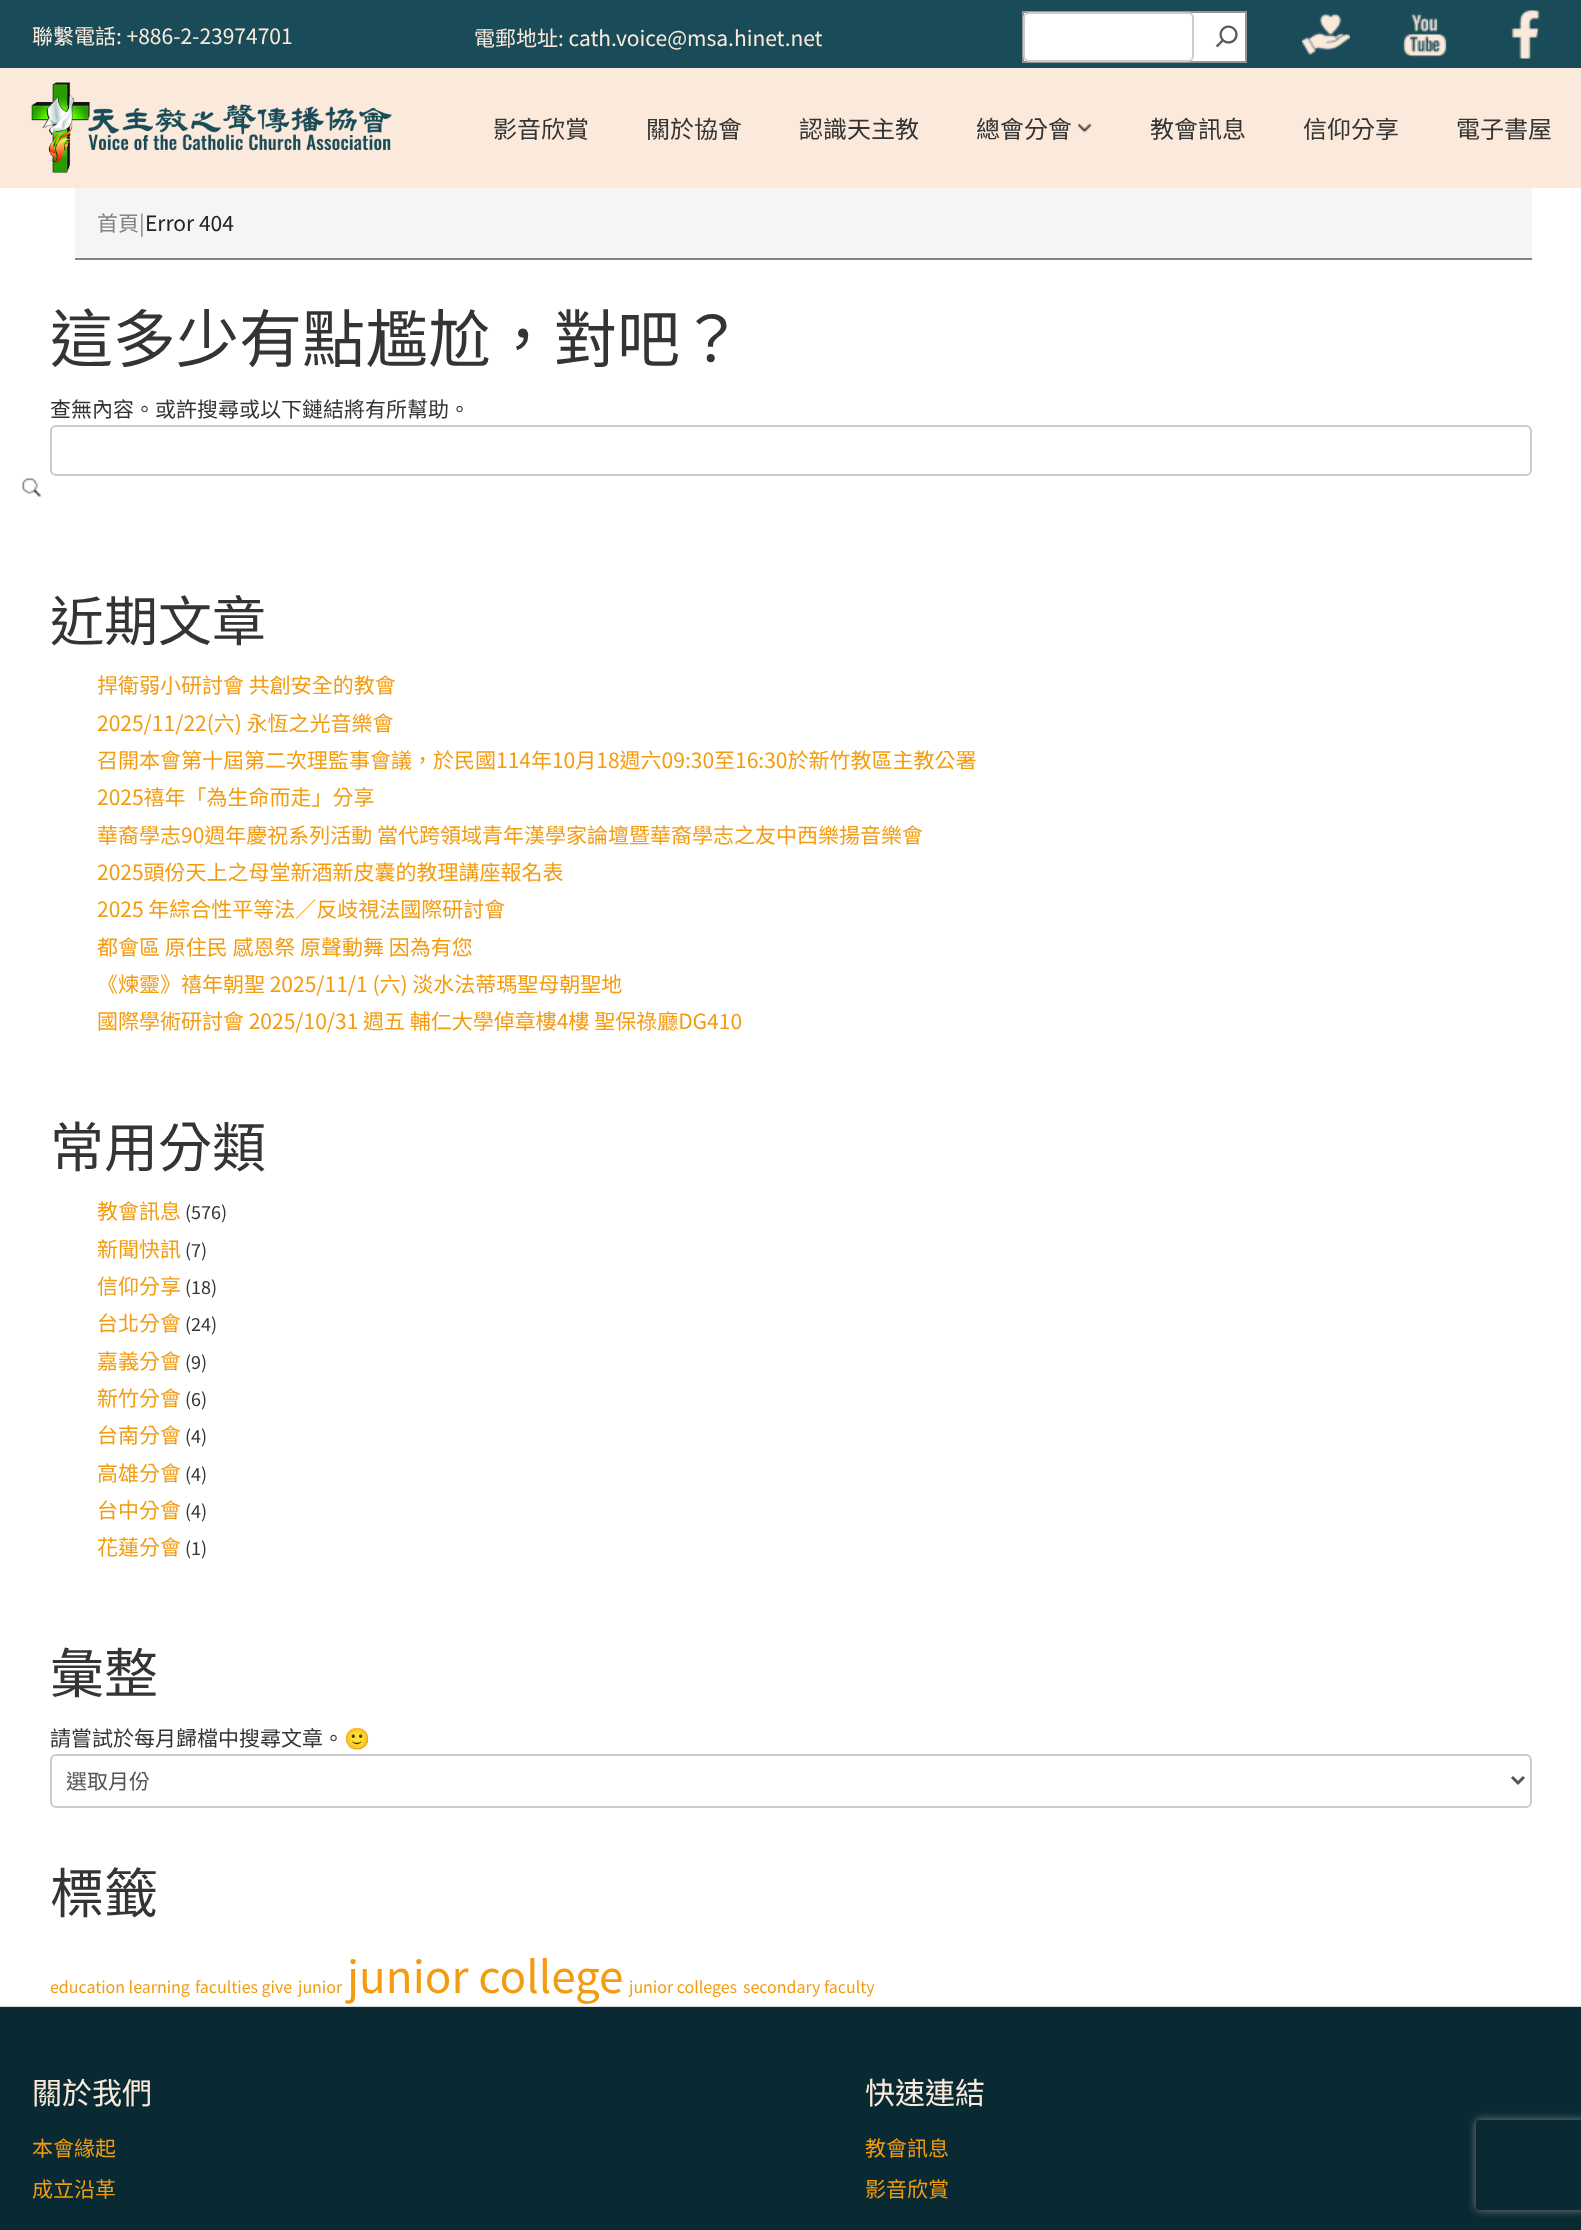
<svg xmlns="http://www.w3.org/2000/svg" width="1581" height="2230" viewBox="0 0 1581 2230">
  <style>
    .t1 { font: 21px Noto Sans TC; fill: #fbeadb; }
    .t2 { font: 24px Noto Sans TC; fill: #343434; }
    .t3 { font: 21px Noto Sans TC; fill: #838383; }
    .t4 { font: 21px Noto Sans TC; fill: #222; }
    .t5 { font: 63px Noto Sans TC; fill: #343434; }
    .t6 { font: 21px Noto Sans TC; fill: #343434; }
    .t7 { font: 54px Noto Sans TC; fill: #343434; }
    .t8 { font: 21px Noto Sans TC; fill: #f39c11; }
    .t9 { font: 18px Noto Sans TC; fill: #343434; }
    .t10 { font: 21px Noto Color Emoji; fill: #343434; }
    .t11 { font: 21px Noto Sans TC; fill: #555; }
    .t12 { font: 16px Noto Sans TC; fill: #f39c11; }
    .t13 { font: 44px Noto Sans TC; fill: #f39c11; }
    .t14 { font: 30px Noto Sans TC; fill: #fbeadb; }
  </style>
  <defs>
    <clipPath id="clip1"><path d="M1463 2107H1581V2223H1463ZM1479 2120H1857C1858.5 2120 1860 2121.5 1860 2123V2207C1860 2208.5 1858.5 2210 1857 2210H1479C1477.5 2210 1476 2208.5 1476 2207V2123C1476 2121.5 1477.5 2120 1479 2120Z" clip-rule="evenodd"/></clipPath>
  </defs>
  <rect width="100%" height="100%" fill="#fff"/>
  <rect x="0" y="0" width="1581" height="68" fill="#1a4b59"/>
  <text x="32" y="44" class="t1">聯繫電話: +886-2-23974701</text>
  <image x="1511" y="10" width="29" height="49" href="images/1.png"/>
  <text x="474" y="46" class="t1">電郵地址: cath.voice@msa.hinet.net</text>
  <image x="1302" y="13" width="48" height="43" href="images/2.png"/>
  <image x="1403" y="13" width="44" height="44" href="images/3.png"/>
  <rect x="1023" y="12" width="223" height="50" fill="#fff" stroke="#949494" stroke-width="2"/>
  <rect x="1024" y="13" width="169" height="48" rx="5" fill="none" stroke="#ccc" stroke-width="2"/>
  <image x="1215" y="25" width="23" height="23" href="images/4.png"/>
  <rect x="0" y="68" width="1581" height="120" fill="#fbeadb"/>
  <image x="31" y="82" width="361" height="91" href="images/5.png"/>
  <text x="493" y="138" class="t2">影音欣賞</text>
  <text x="646" y="138" class="t2">關於協會</text>
  <text x="799" y="138" class="t2">認識天主教</text>
  <image x="1078" y="123" width="14" height="10" href="images/6.png"/>
  <text x="976" y="138" class="t2">總會分會</text>
  <text x="1150" y="138" class="t2">教會訊息</text>
  <text x="1303" y="138" class="t2">信仰分享</text>
  <text x="1456" y="138" class="t2">電子書屋</text>
  <rect x="75" y="188" width="1457" height="70" fill="#f5f5f5"/>
  <rect x="75" y="258" width="1457" height="2" fill="#838383"/>
  <text x="97" y="231" class="t3">首頁|</text>
  <text x="145" y="231" class="t4">Error 404</text>
  <text x="50" y="362" class="t5">這多少有點尷尬，對吧？</text>
  <text x="50" y="417" class="t6">查無內容。或許搜尋或以下鏈結將有所幫助。</text>
  <rect x="51" y="426" width="1480" height="49" rx="5" fill="none" stroke="#ccc" stroke-width="2"/>
  <image x="22" y="478" width="19" height="19" href="images/7.png"/>
  <text x="50" y="641" class="t7">近期文章</text>
  <text x="97" y="693" class="t8">捍衛弱小研討會 共創安全的教會</text>
  <text x="97" y="731" class="t8">2025/11/22(六) 永恆之光音樂會</text>
  <text x="97" y="768" class="t8">召開本會第十屆第二次理監事會議，於民國114年10月18週六09:30至16:30於新竹教區主教公署</text>
  <text x="97" y="805" class="t8">2025禧年「為生命而走」分享</text>
  <text x="97" y="843" class="t8">華裔學志90週年慶祝系列活動 當代跨領域青年漢學家論壇暨華裔學志之友中西樂揚音樂會</text>
  <text x="97" y="880" class="t8">2025頭份天上之母堂新酒新皮囊的教理講座報名表</text>
  <text x="97" y="917" class="t8">2025 年綜合性平等法∕反歧視法國際研討會</text>
  <text x="97" y="955" class="t8">都會區 原住民 感恩祭 原聲動舞 因為有您</text>
  <text x="97" y="992" class="t8">《煉靈》禧年朝聖 2025/11/1 (六) 淡水法蒂瑪聖母朝聖地</text>
  <text x="97" y="1029" class="t8">國際學術研討會 2025/10/31 週五 輔仁大學倬章樓4樓 聖保祿廳DG410</text>
  <text x="50" y="1167" class="t7">常用分類</text>
  <text x="97" y="1219" class="t8">教會訊息</text>
  <text x="185" y="1219" class="t9">(576)</text>
  <text x="97" y="1257" class="t8">新聞快訊</text>
  <text x="185" y="1257" class="t9">(7)</text>
  <text x="97" y="1294" class="t8">信仰分享</text>
  <text x="185" y="1294" class="t9">(18)</text>
  <text x="97" y="1331" class="t8">台北分會</text>
  <text x="185" y="1331" class="t9">(24)</text>
  <text x="97" y="1369" class="t8">嘉義分會</text>
  <text x="185" y="1369" class="t9">(9)</text>
  <text x="97" y="1406" class="t8">新竹分會</text>
  <text x="185" y="1406" class="t9">(6)</text>
  <text x="97" y="1443" class="t8">台南分會</text>
  <text x="185" y="1443" class="t9">(4)</text>
  <text x="97" y="1481" class="t8">高雄分會</text>
  <text x="185" y="1481" class="t9">(4)</text>
  <text x="97" y="1518" class="t8">台中分會</text>
  <text x="185" y="1518" class="t9">(4)</text>
  <text x="97" y="1555" class="t8">花蓮分會</text>
  <text x="185" y="1555" class="t9">(1)</text>
  <text x="50" y="1693" class="t7">彙整</text>
  <text x="50" y="1746" class="t6">請嘗試於每月歸檔中搜尋文章。</text>
  <text x="344" y="1746" class="t10">🙂</text>
  <rect x="51" y="1755" width="1480" height="52" rx="5" fill="none" stroke="#ccc" stroke-width="2"/>
  <path d="M1512 1777L1518 1783L1524 1777" fill="none" stroke="#555" stroke-width="3"/>
  <text x="66" y="1789" class="t11">選取月份</text>
  <text x="50" y="1913" class="t7">標籤</text>
  <text x="50" y="1993" class="t12">education learning</text>
  <text x="195" y="1993" class="t12">faculties give</text>
  <text x="298" y="1993" class="t12">junior</text>
  <text x="347" y="1993" class="t13">junior college</text>
  <text x="629" y="1993" class="t12">junior colleges</text>
  <text x="743" y="1993" class="t12">secondary faculty</text>
  <rect x="0" y="2006" width="1581" height="1" fill="#dcdcdc"/>
  <rect x="0" y="2007" width="1581" height="223" fill="#092a33"/>
  <text x="32" y="2104" class="t14">關於我們</text>
  <text x="32" y="2156" class="t8">本會緣起</text>
  <text x="32" y="2197" class="t8">成立沿革</text>
  <text x="865" y="2104" class="t14">快速連結</text>
  <text x="865" y="2156" class="t8">教會訊息</text>
  <text x="865" y="2197" class="t8">影音欣賞</text>
  <g clip-path="url(#clip1)">
    <rect x="1476" y="2120" width="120" height="90" rx="3" fill="#808080" filter="blur(4px)"/>
  </g>
</svg>
